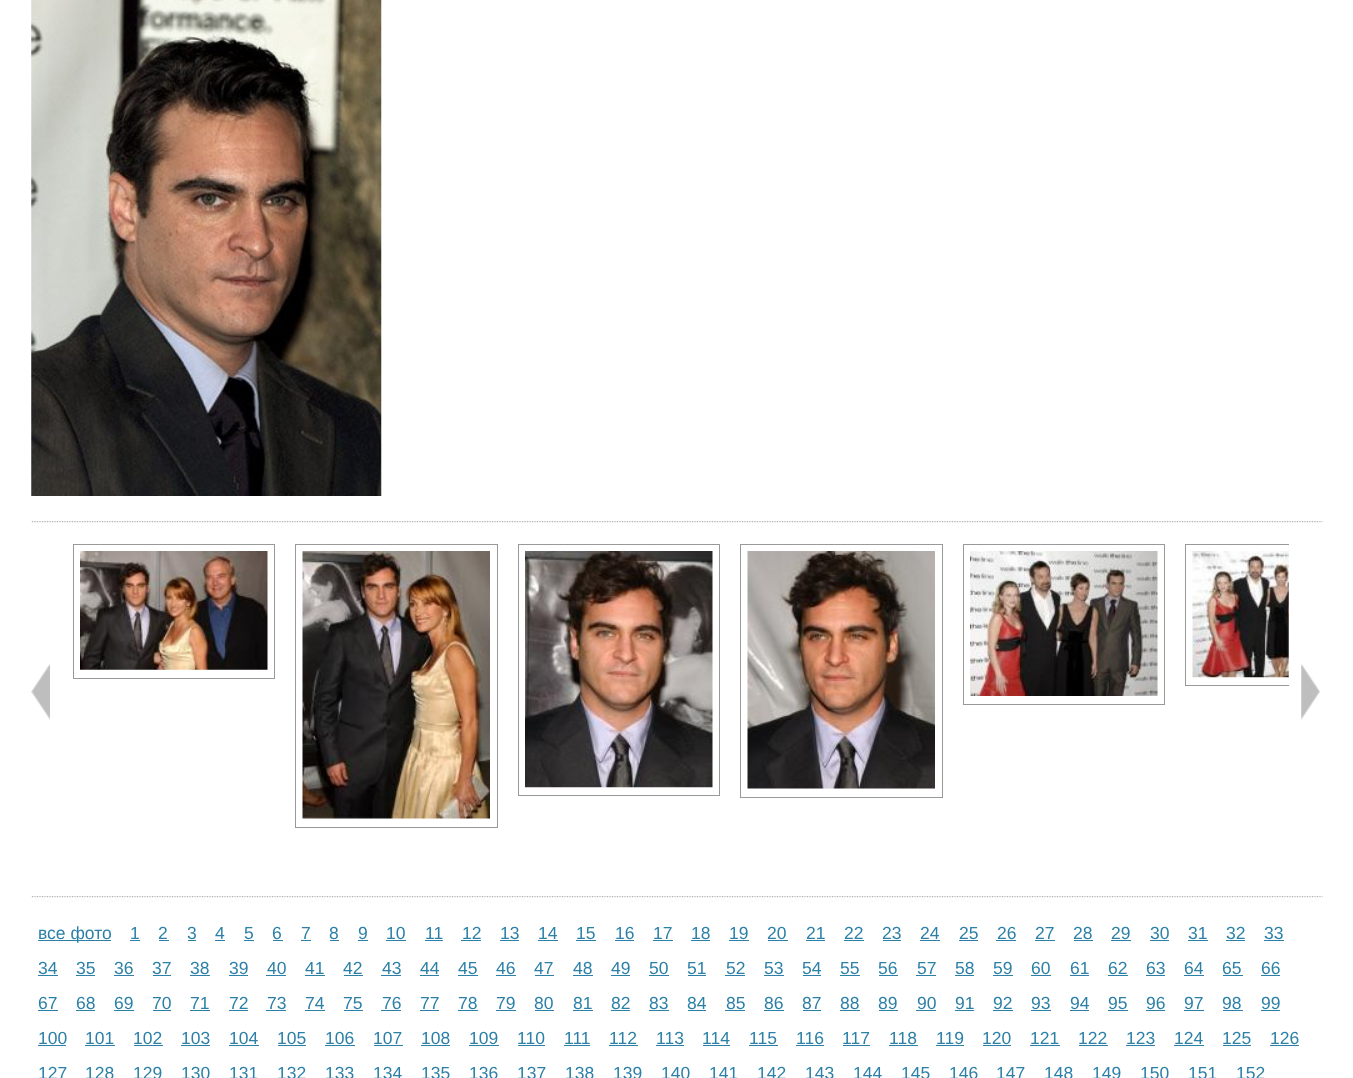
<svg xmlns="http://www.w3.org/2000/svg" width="1353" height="1078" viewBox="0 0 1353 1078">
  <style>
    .t1 { font: 17.5px Liberation Sans; fill: #2c80a7; }
  </style>
  <defs>
    <clipPath id="clip1"><rect x="63" y="540" width="1226" height="338"/></clipPath>
  </defs>
  <rect width="100%" height="100%" fill="#fff"/>
  <image x="31" y="0" width="351" height="496" href="images/1.png"/>
  <image x="31" y="521" width="1292" height="2" href="images/2.png"/>
  <image x="31" y="664" width="19" height="56" href="images/3.png"/>
  <rect x="73.5" y="544.5" width="201" height="134" fill="none" stroke="#999"/>
  <image x="80" y="551" width="188" height="119" href="images/4.png"/>
  <rect x="295.5" y="544.5" width="202" height="283" fill="none" stroke="#999"/>
  <image x="302" y="551" width="188" height="268" href="images/5.png"/>
  <rect x="518.5" y="544.5" width="201" height="251" fill="none" stroke="#999"/>
  <image x="525" y="551" width="188" height="237" href="images/6.png"/>
  <rect x="740.5" y="544.5" width="202" height="253" fill="none" stroke="#999"/>
  <image x="747" y="551" width="188" height="238" href="images/7.png"/>
  <rect x="963.5" y="544.5" width="201" height="160" fill="none" stroke="#999"/>
  <image x="970" y="551" width="188" height="145" href="images/8.png"/>
  <image x="1301" y="664" width="19" height="56" href="images/10.png"/>
  <g clip-path="url(#clip1)">
    <rect x="1185.5" y="544.5" width="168" height="141" fill="none" stroke="#999"/>
  </g>
  <image x="1192" y="551" width="97" height="127" href="images/9.png"/>
  <image x="31" y="896" width="1292" height="2" href="images/2.png"/>
  <rect x="38" y="940" width="73" height="1" fill="#2c80a7"/>
  <text x="38" y="939" class="t1">все фото</text>
  <text x="130" y="939" class="t1">1</text>
  <rect x="130" y="940" width="10" height="1" fill="#2c80a7"/>
  <text x="158" y="939" class="t1">2</text>
  <rect x="159" y="940" width="10" height="1" fill="#2c80a7"/>
  <text x="187" y="939" class="t1">3</text>
  <rect x="188" y="940" width="8" height="1" fill="#2c80a7"/>
  <text x="215" y="939" class="t1">4</text>
  <rect x="215" y="940" width="10" height="1" fill="#2c80a7"/>
  <text x="244" y="939" class="t1">5</text>
  <rect x="244" y="940" width="10" height="1" fill="#2c80a7"/>
  <text x="272" y="939" class="t1">6</text>
  <rect x="273" y="940" width="10" height="1" fill="#2c80a7"/>
  <text x="301" y="939" class="t1">7</text>
  <rect x="301" y="940" width="10" height="1" fill="#2c80a7"/>
  <text x="329" y="939" class="t1">8</text>
  <rect x="330" y="940" width="9" height="1" fill="#2c80a7"/>
  <text x="358" y="939" class="t1">9</text>
  <rect x="358" y="940" width="10" height="1" fill="#2c80a7"/>
  <text x="386" y="939" class="t1">10</text>
  <rect x="386" y="940" width="20" height="1" fill="#2c80a7"/>
  <text x="425" y="939" class="t1">11</text>
  <rect x="425" y="940" width="18" height="1" fill="#2c80a7"/>
  <text x="462" y="939" class="t1">12</text>
  <rect x="461" y="940" width="20" height="1" fill="#2c80a7"/>
  <text x="500" y="939" class="t1">13</text>
  <rect x="500" y="940" width="19" height="1" fill="#2c80a7"/>
  <text x="538" y="939" class="t1">14</text>
  <rect x="538" y="940" width="20" height="1" fill="#2c80a7"/>
  <text x="576" y="939" class="t1">15</text>
  <rect x="576" y="940" width="20" height="1" fill="#2c80a7"/>
  <text x="615" y="939" class="t1">16</text>
  <rect x="615" y="940" width="19" height="1" fill="#2c80a7"/>
  <text x="653" y="939" class="t1">17</text>
  <rect x="653" y="940" width="20" height="1" fill="#2c80a7"/>
  <text x="691" y="939" class="t1">18</text>
  <rect x="691" y="940" width="19" height="1" fill="#2c80a7"/>
  <text x="729" y="939" class="t1">19</text>
  <rect x="729" y="940" width="20" height="1" fill="#2c80a7"/>
  <text x="767" y="939" class="t1">20</text>
  <rect x="768" y="940" width="20" height="1" fill="#2c80a7"/>
  <text x="806" y="939" class="t1">21</text>
  <rect x="806" y="940" width="19" height="1" fill="#2c80a7"/>
  <text x="844" y="939" class="t1">22</text>
  <rect x="844" y="940" width="20" height="1" fill="#2c80a7"/>
  <text x="882" y="939" class="t1">23</text>
  <rect x="883" y="940" width="18" height="1" fill="#2c80a7"/>
  <text x="920" y="939" class="t1">24</text>
  <rect x="920" y="940" width="20" height="1" fill="#2c80a7"/>
  <text x="959" y="939" class="t1">25</text>
  <rect x="959" y="940" width="19" height="1" fill="#2c80a7"/>
  <text x="997" y="939" class="t1">26</text>
  <rect x="996" y="940" width="20" height="1" fill="#2c80a7"/>
  <text x="1035" y="939" class="t1">27</text>
  <rect x="1035" y="940" width="20" height="1" fill="#2c80a7"/>
  <text x="1073" y="939" class="t1">28</text>
  <rect x="1074" y="940" width="19" height="1" fill="#2c80a7"/>
  <text x="1111" y="939" class="t1">29</text>
  <rect x="1111" y="940" width="20" height="1" fill="#2c80a7"/>
  <text x="1150" y="939" class="t1">30</text>
  <rect x="1150" y="940" width="19" height="1" fill="#2c80a7"/>
  <text x="1188" y="939" class="t1">31</text>
  <rect x="1188" y="940" width="20" height="1" fill="#2c80a7"/>
  <text x="1226" y="939" class="t1">32</text>
  <rect x="1226" y="940" width="19" height="1" fill="#2c80a7"/>
  <text x="1264" y="939" class="t1">33</text>
  <rect x="1264" y="940" width="20" height="1" fill="#2c80a7"/>
  <text x="38" y="974" class="t1">34</text>
  <rect x="38" y="975" width="20" height="1" fill="#2c80a7"/>
  <text x="76" y="974" class="t1">35</text>
  <rect x="76" y="975" width="19" height="1" fill="#2c80a7"/>
  <text x="114" y="974" class="t1">36</text>
  <rect x="114" y="975" width="20" height="1" fill="#2c80a7"/>
  <text x="152" y="974" class="t1">37</text>
  <rect x="153" y="975" width="18" height="1" fill="#2c80a7"/>
  <text x="190" y="974" class="t1">38</text>
  <rect x="190" y="975" width="20" height="1" fill="#2c80a7"/>
  <text x="229" y="974" class="t1">39</text>
  <rect x="229" y="975" width="19" height="1" fill="#2c80a7"/>
  <text x="267" y="974" class="t1">40</text>
  <rect x="266" y="975" width="20" height="1" fill="#2c80a7"/>
  <text x="305" y="974" class="t1">41</text>
  <rect x="305" y="975" width="20" height="1" fill="#2c80a7"/>
  <text x="343" y="974" class="t1">42</text>
  <rect x="344" y="975" width="19" height="1" fill="#2c80a7"/>
  <text x="382" y="974" class="t1">43</text>
  <rect x="381" y="975" width="20" height="1" fill="#2c80a7"/>
  <text x="420" y="974" class="t1">44</text>
  <rect x="420" y="975" width="19" height="1" fill="#2c80a7"/>
  <text x="458" y="974" class="t1">45</text>
  <rect x="458" y="975" width="20" height="1" fill="#2c80a7"/>
  <text x="496" y="974" class="t1">46</text>
  <rect x="496" y="975" width="20" height="1" fill="#2c80a7"/>
  <text x="534" y="974" class="t1">47</text>
  <rect x="535" y="975" width="19" height="1" fill="#2c80a7"/>
  <text x="573" y="974" class="t1">48</text>
  <rect x="573" y="975" width="20" height="1" fill="#2c80a7"/>
  <text x="611" y="974" class="t1">49</text>
  <rect x="611" y="975" width="19" height="1" fill="#2c80a7"/>
  <text x="649" y="974" class="t1">50</text>
  <rect x="649" y="975" width="20" height="1" fill="#2c80a7"/>
  <text x="687" y="974" class="t1">51</text>
  <rect x="688" y="975" width="18" height="1" fill="#2c80a7"/>
  <text x="726" y="974" class="t1">52</text>
  <rect x="725" y="975" width="20" height="1" fill="#2c80a7"/>
  <text x="764" y="974" class="t1">53</text>
  <rect x="764" y="975" width="20" height="1" fill="#2c80a7"/>
  <text x="802" y="974" class="t1">54</text>
  <rect x="803" y="975" width="18" height="1" fill="#2c80a7"/>
  <text x="840" y="974" class="t1">55</text>
  <rect x="840" y="975" width="20" height="1" fill="#2c80a7"/>
  <text x="878" y="974" class="t1">56</text>
  <rect x="879" y="975" width="19" height="1" fill="#2c80a7"/>
  <text x="917" y="974" class="t1">57</text>
  <rect x="916" y="975" width="20" height="1" fill="#2c80a7"/>
  <text x="955" y="974" class="t1">58</text>
  <rect x="955" y="975" width="19" height="1" fill="#2c80a7"/>
  <text x="993" y="974" class="t1">59</text>
  <rect x="993" y="975" width="20" height="1" fill="#2c80a7"/>
  <text x="1031" y="974" class="t1">60</text>
  <rect x="1031" y="975" width="20" height="1" fill="#2c80a7"/>
  <text x="1070" y="974" class="t1">61</text>
  <rect x="1070" y="975" width="19" height="1" fill="#2c80a7"/>
  <text x="1108" y="974" class="t1">62</text>
  <rect x="1108" y="975" width="20" height="1" fill="#2c80a7"/>
  <text x="1146" y="974" class="t1">63</text>
  <rect x="1146" y="975" width="19" height="1" fill="#2c80a7"/>
  <text x="1184" y="974" class="t1">64</text>
  <rect x="1184" y="975" width="20" height="1" fill="#2c80a7"/>
  <text x="1222" y="974" class="t1">65</text>
  <rect x="1223" y="975" width="20" height="1" fill="#2c80a7"/>
  <text x="1261" y="974" class="t1">66</text>
  <rect x="1261" y="975" width="19" height="1" fill="#2c80a7"/>
  <text x="38" y="1009" class="t1">67</text>
  <rect x="38" y="1010" width="20" height="1" fill="#2c80a7"/>
  <text x="76" y="1009" class="t1">68</text>
  <rect x="76" y="1010" width="19" height="1" fill="#2c80a7"/>
  <text x="114" y="1009" class="t1">69</text>
  <rect x="114" y="1010" width="20" height="1" fill="#2c80a7"/>
  <text x="152" y="1009" class="t1">70</text>
  <rect x="153" y="1010" width="18" height="1" fill="#2c80a7"/>
  <text x="190" y="1009" class="t1">71</text>
  <rect x="190" y="1010" width="20" height="1" fill="#2c80a7"/>
  <text x="229" y="1009" class="t1">72</text>
  <rect x="229" y="1010" width="19" height="1" fill="#2c80a7"/>
  <text x="267" y="1009" class="t1">73</text>
  <rect x="266" y="1010" width="20" height="1" fill="#2c80a7"/>
  <text x="305" y="1009" class="t1">74</text>
  <rect x="305" y="1010" width="20" height="1" fill="#2c80a7"/>
  <text x="343" y="1009" class="t1">75</text>
  <rect x="344" y="1010" width="19" height="1" fill="#2c80a7"/>
  <text x="382" y="1009" class="t1">76</text>
  <rect x="381" y="1010" width="20" height="1" fill="#2c80a7"/>
  <text x="420" y="1009" class="t1">77</text>
  <rect x="420" y="1010" width="19" height="1" fill="#2c80a7"/>
  <text x="458" y="1009" class="t1">78</text>
  <rect x="458" y="1010" width="20" height="1" fill="#2c80a7"/>
  <text x="496" y="1009" class="t1">79</text>
  <rect x="496" y="1010" width="20" height="1" fill="#2c80a7"/>
  <text x="534" y="1009" class="t1">80</text>
  <rect x="535" y="1010" width="19" height="1" fill="#2c80a7"/>
  <text x="573" y="1009" class="t1">81</text>
  <rect x="573" y="1010" width="20" height="1" fill="#2c80a7"/>
  <text x="611" y="1009" class="t1">82</text>
  <rect x="611" y="1010" width="19" height="1" fill="#2c80a7"/>
  <text x="649" y="1009" class="t1">83</text>
  <rect x="649" y="1010" width="20" height="1" fill="#2c80a7"/>
  <text x="687" y="1009" class="t1">84</text>
  <rect x="688" y="1010" width="18" height="1" fill="#2c80a7"/>
  <text x="726" y="1009" class="t1">85</text>
  <rect x="725" y="1010" width="20" height="1" fill="#2c80a7"/>
  <text x="764" y="1009" class="t1">86</text>
  <rect x="764" y="1010" width="20" height="1" fill="#2c80a7"/>
  <text x="802" y="1009" class="t1">87</text>
  <rect x="803" y="1010" width="18" height="1" fill="#2c80a7"/>
  <text x="840" y="1009" class="t1">88</text>
  <rect x="840" y="1010" width="20" height="1" fill="#2c80a7"/>
  <text x="878" y="1009" class="t1">89</text>
  <rect x="879" y="1010" width="19" height="1" fill="#2c80a7"/>
  <text x="917" y="1009" class="t1">90</text>
  <rect x="916" y="1010" width="20" height="1" fill="#2c80a7"/>
  <text x="955" y="1009" class="t1">91</text>
  <rect x="955" y="1010" width="19" height="1" fill="#2c80a7"/>
  <text x="993" y="1009" class="t1">92</text>
  <rect x="993" y="1010" width="20" height="1" fill="#2c80a7"/>
  <text x="1031" y="1009" class="t1">93</text>
  <rect x="1031" y="1010" width="20" height="1" fill="#2c80a7"/>
  <text x="1070" y="1009" class="t1">94</text>
  <rect x="1070" y="1010" width="19" height="1" fill="#2c80a7"/>
  <text x="1108" y="1009" class="t1">95</text>
  <rect x="1108" y="1010" width="20" height="1" fill="#2c80a7"/>
  <text x="1146" y="1009" class="t1">96</text>
  <rect x="1146" y="1010" width="19" height="1" fill="#2c80a7"/>
  <text x="1184" y="1009" class="t1">97</text>
  <rect x="1184" y="1010" width="20" height="1" fill="#2c80a7"/>
  <text x="1222" y="1009" class="t1">98</text>
  <rect x="1223" y="1010" width="20" height="1" fill="#2c80a7"/>
  <text x="1261" y="1009" class="t1">99</text>
  <rect x="1261" y="1010" width="19" height="1" fill="#2c80a7"/>
  <text x="38" y="1044" class="t1">100</text>
  <rect x="38" y="1045" width="28" height="1" fill="#2c80a7"/>
  <text x="85" y="1044" class="t1">101</text>
  <rect x="85" y="1045" width="30" height="1" fill="#2c80a7"/>
  <text x="133" y="1044" class="t1">102</text>
  <rect x="134" y="1045" width="29" height="1" fill="#2c80a7"/>
  <text x="181" y="1044" class="t1">103</text>
  <rect x="181" y="1045" width="29" height="1" fill="#2c80a7"/>
  <text x="229" y="1044" class="t1">104</text>
  <rect x="229" y="1045" width="30" height="1" fill="#2c80a7"/>
  <text x="277" y="1044" class="t1">105</text>
  <rect x="278" y="1045" width="28" height="1" fill="#2c80a7"/>
  <text x="325" y="1044" class="t1">106</text>
  <rect x="325" y="1045" width="30" height="1" fill="#2c80a7"/>
  <text x="373" y="1044" class="t1">107</text>
  <rect x="374" y="1045" width="29" height="1" fill="#2c80a7"/>
  <text x="421" y="1044" class="t1">108</text>
  <rect x="421" y="1045" width="29" height="1" fill="#2c80a7"/>
  <text x="469" y="1044" class="t1">109</text>
  <rect x="469" y="1045" width="30" height="1" fill="#2c80a7"/>
  <text x="517" y="1044" class="t1">110</text>
  <rect x="518" y="1045" width="27" height="1" fill="#2c80a7"/>
  <text x="564" y="1044" class="t1">111</text>
  <rect x="564" y="1045" width="26" height="1" fill="#2c80a7"/>
  <text x="609" y="1044" class="t1">112</text>
  <rect x="609" y="1045" width="29" height="1" fill="#2c80a7"/>
  <text x="656" y="1044" class="t1">113</text>
  <rect x="656" y="1045" width="28" height="1" fill="#2c80a7"/>
  <text x="702" y="1044" class="t1">114</text>
  <rect x="703" y="1045" width="27" height="1" fill="#2c80a7"/>
  <text x="749" y="1044" class="t1">115</text>
  <rect x="749" y="1045" width="29" height="1" fill="#2c80a7"/>
  <text x="796" y="1044" class="t1">116</text>
  <rect x="796" y="1045" width="28" height="1" fill="#2c80a7"/>
  <text x="842" y="1044" class="t1">117</text>
  <rect x="843" y="1045" width="27" height="1" fill="#2c80a7"/>
  <text x="889" y="1044" class="t1">118</text>
  <rect x="889" y="1045" width="29" height="1" fill="#2c80a7"/>
  <text x="936" y="1044" class="t1">119</text>
  <rect x="936" y="1045" width="28" height="1" fill="#2c80a7"/>
  <text x="982" y="1044" class="t1">120</text>
  <rect x="983" y="1045" width="28" height="1" fill="#2c80a7"/>
  <text x="1030" y="1044" class="t1">121</text>
  <rect x="1030" y="1045" width="30" height="1" fill="#2c80a7"/>
  <text x="1078" y="1044" class="t1">122</text>
  <rect x="1079" y="1045" width="29" height="1" fill="#2c80a7"/>
  <text x="1126" y="1044" class="t1">123</text>
  <rect x="1126" y="1045" width="29" height="1" fill="#2c80a7"/>
  <text x="1174" y="1044" class="t1">124</text>
  <rect x="1174" y="1045" width="30" height="1" fill="#2c80a7"/>
  <text x="1222" y="1044" class="t1">125</text>
  <rect x="1223" y="1045" width="28" height="1" fill="#2c80a7"/>
  <text x="1270" y="1044" class="t1">126</text>
  <rect x="1270" y="1045" width="29" height="1" fill="#2c80a7"/>
  <text x="38" y="1079" class="t1">127</text>
  <text x="85" y="1079" class="t1">128</text>
  <text x="133" y="1079" class="t1">129</text>
  <text x="181" y="1079" class="t1">130</text>
  <text x="229" y="1079" class="t1">131</text>
  <text x="277" y="1079" class="t1">132</text>
  <text x="325" y="1079" class="t1">133</text>
  <text x="373" y="1079" class="t1">134</text>
  <text x="421" y="1079" class="t1">135</text>
  <text x="469" y="1079" class="t1">136</text>
  <text x="517" y="1079" class="t1">137</text>
  <text x="565" y="1079" class="t1">138</text>
  <text x="613" y="1079" class="t1">139</text>
  <text x="661" y="1079" class="t1">140</text>
  <text x="709" y="1079" class="t1">141</text>
  <text x="757" y="1079" class="t1">142</text>
  <text x="805" y="1079" class="t1">143</text>
  <text x="853" y="1079" class="t1">144</text>
  <text x="901" y="1079" class="t1">145</text>
  <text x="949" y="1079" class="t1">146</text>
  <text x="996" y="1079" class="t1">147</text>
  <text x="1044" y="1079" class="t1">148</text>
  <text x="1092" y="1079" class="t1">149</text>
  <text x="1140" y="1079" class="t1">150</text>
  <text x="1188" y="1079" class="t1">151</text>
  <text x="1236" y="1079" class="t1">152</text>
</svg>
